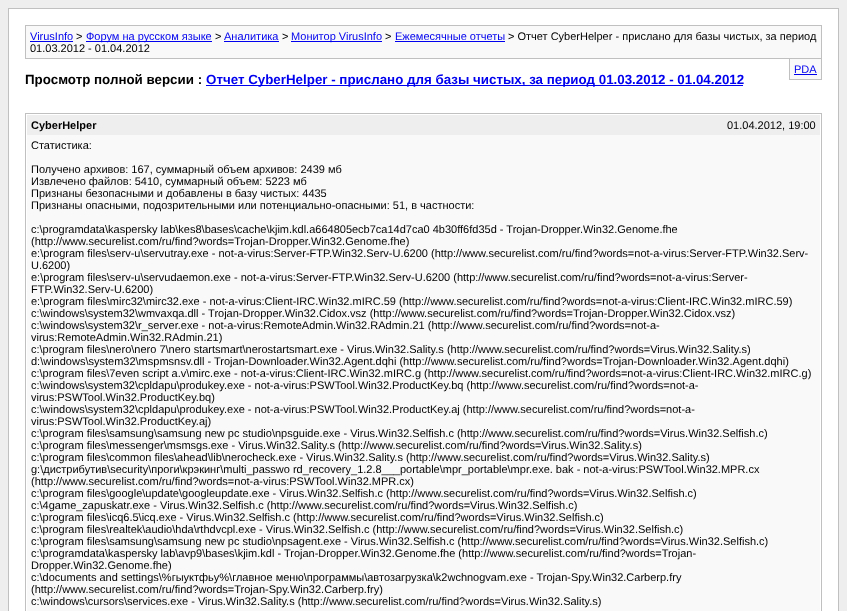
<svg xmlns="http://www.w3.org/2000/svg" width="847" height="611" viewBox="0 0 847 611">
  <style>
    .t1 { font: 11px Liberation Sans; fill: #00e; }
    .t2 { font: 11px Liberation Sans; fill: #000; }
    .t3 { font: bold 13.35px Liberation Sans; fill: #000; }
    .t4 { font: bold 13.35px Liberation Sans; fill: #00e; }
    .t5 { font: bold 11px Liberation Sans; fill: #000; }
  </style>
  <rect width="100%" height="100%" fill="#eee"/>
  <rect x="8.5" y="8.5" width="830" height="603" fill="#fff" stroke="#c0c0c0"/>
  <rect x="25.5" y="25.5" width="796" height="33" fill="#f9f9f9" stroke="#c0c0c0"/>
  <text x="30" y="40" class="t1">VirusInfo</text>
  <rect x="30" y="41" width="43" height="1" fill="#00e"/>
  <text x="76" y="40" class="t2">&gt;</text>
  <rect x="86" y="41" width="126" height="1" fill="#00e"/>
  <text x="86" y="40" class="t1">Форум на русском языке</text>
  <text x="215" y="40" class="t2">&gt;</text>
  <text x="224" y="40" class="t1">Аналитика</text>
  <rect x="224" y="41" width="55" height="1" fill="#00e"/>
  <text x="282" y="40" class="t2">&gt;</text>
  <rect x="291" y="41" width="91" height="1" fill="#00e"/>
  <text x="291" y="40" class="t1">Монитор VirusInfo</text>
  <text x="385" y="40" class="t2">&gt;</text>
  <text x="395" y="40" class="t1">Ежемесячные отчеты</text>
  <rect x="395" y="41" width="110" height="1" fill="#00e"/>
  <text x="508" y="40" class="t2">&gt; Отчет CyberHelper - прислано для базы чистых, за период</text>
  <text x="30" y="52" class="t2">01.03.2012 - 01.04.2012</text>
  <rect x="790" y="59" width="31" height="20" fill="#f9f9f9"/>
  <rect x="821" y="59" width="1" height="21" fill="#c0c0c0"/>
  <rect x="789" y="79" width="33" height="1" fill="#c0c0c0"/>
  <rect x="789" y="59" width="1" height="21" fill="#c0c0c0"/>
  <text x="794" y="73" class="t1">PDA</text>
  <rect x="794" y="74" width="23" height="1" fill="#00e"/>
  <text x="25" y="84" class="t3">Просмотр полной версии :</text>
  <rect x="206" y="85" width="537" height="1" fill="#00e"/>
  <text x="206" y="84" class="t4">Отчет CyberHelper - прислано для базы чистых, за период 01.03.2012 - 01.04.2012</text>
  <rect x="25.5" y="113.5" width="796" height="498" fill="none" stroke="#c0c0c0"/>
  <rect x="27" y="115" width="793" height="20" fill="#eee"/>
  <text x="31" y="129" class="t5">CyberHelper</text>
  <text x="727" y="129" class="t2">01.04.2012, 19:00</text>
  <rect x="27" y="135" width="793" height="476" fill="#f9f9f9"/>
  <text x="31" y="149" class="t2">Статистика:</text>
  <text x="31" y="173" class="t2">Получено архивов: 167, суммарный объем архивов: 2439 мб</text>
  <text x="31" y="185" class="t2">Извлечено файлов: 5410, суммарный объем: 5223 мб</text>
  <text x="31" y="197" class="t2">Признаны безопасными и добавлены в базу чистых: 4435</text>
  <text x="31" y="209" class="t2">Признаны опасными, подозрительными или потенциально-опасными: 51, в частности:</text>
  <text x="31" y="233" class="t2">c:\programdata\kaspersky lab\kes8\bases\cache\kjim.kdl.a664805ecb7ca14d7ca0 4b30ff6fd35d - Trojan-Dropper.Win32.Genome.fhe</text>
  <text x="31" y="245" class="t2">(http://www.securelist.com/ru/find?words=Trojan-Dropper.Win32.Genome.fhe)</text>
  <text x="31" y="257" class="t2">e:\program files\serv-u\servutray.exe - not-a-virus:Server-FTP.Win32.Serv-U.6200 (http://www.securelist.com/ru/find?words=not-a-virus:Server-FTP.Win32.Serv-</text>
  <text x="31" y="269" class="t2">U.6200)</text>
  <text x="31" y="281" class="t2">e:\program files\serv-u\servudaemon.exe - not-a-virus:Server-FTP.Win32.Serv-U.6200 (http://www.securelist.com/ru/find?words=not-a-virus:Server-</text>
  <text x="31" y="293" class="t2">FTP.Win32.Serv-U.6200)</text>
  <text x="31" y="305" class="t2">e:\program files\mirc32\mirc32.exe - not-a-virus:Client-IRC.Win32.mIRC.59 (http://www.securelist.com/ru/find?words=not-a-virus:Client-IRC.Win32.mIRC.59)</text>
  <text x="31" y="317" class="t2">c:\windows\system32\wmvaxqa.dll - Trojan-Dropper.Win32.Cidox.vsz (http://www.securelist.com/ru/find?words=Trojan-Dropper.Win32.Cidox.vsz)</text>
  <text x="31" y="329" class="t2">c:\windows\system32\r_server.exe - not-a-virus:RemoteAdmin.Win32.RAdmin.21 (http://www.securelist.com/ru/find?words=not-a-</text>
  <text x="31" y="341" class="t2">virus:RemoteAdmin.Win32.RAdmin.21)</text>
  <text x="31" y="353" class="t2">c:\program files\nero\nero 7\nero startsmart\nerostartsmart.exe - Virus.Win32.Sality.s (http://www.securelist.com/ru/find?words=Virus.Win32.Sality.s)</text>
  <text x="31" y="365" class="t2">d:\windows\system32\mspmsnsv.dll - Trojan-Downloader.Win32.Agent.dqhi (http://www.securelist.com/ru/find?words=Trojan-Downloader.Win32.Agent.dqhi)</text>
  <text x="31" y="377" class="t2">c:\program files\7even script a.v\mirc.exe - not-a-virus:Client-IRC.Win32.mIRC.g (http://www.securelist.com/ru/find?words=not-a-virus:Client-IRC.Win32.mIRC.g)</text>
  <text x="31" y="389" class="t2">c:\windows\system32\cpldapu\produkey.exe - not-a-virus:PSWTool.Win32.ProductKey.bq (http://www.securelist.com/ru/find?words=not-a-</text>
  <text x="31" y="401" class="t2">virus:PSWTool.Win32.ProductKey.bq)</text>
  <text x="31" y="413" class="t2">c:\windows\system32\cpldapu\produkey.exe - not-a-virus:PSWTool.Win32.ProductKey.aj (http://www.securelist.com/ru/find?words=not-a-</text>
  <text x="31" y="425" class="t2">virus:PSWTool.Win32.ProductKey.aj)</text>
  <text x="31" y="437" class="t2">c:\program files\samsung\samsung new pc studio\npsguide.exe - Virus.Win32.Selfish.c (http://www.securelist.com/ru/find?words=Virus.Win32.Selfish.c)</text>
  <text x="31" y="449" class="t2">c:\program files\messenger\msmsgs.exe - Virus.Win32.Sality.s (http://www.securelist.com/ru/find?words=Virus.Win32.Sality.s)</text>
  <text x="31" y="461" class="t2">c:\program files\common files\ahead\lib\nerocheck.exe - Virus.Win32.Sality.s (http://www.securelist.com/ru/find?words=Virus.Win32.Sality.s)</text>
  <text x="31" y="473" class="t2">g:\дистрибутив\security\проги\крэкинг\multi_passwo rd_recovery_1.2.8___portable\mpr_portable\mpr.exe. bak - not-a-virus:PSWTool.Win32.MPR.cx</text>
  <text x="31" y="485" class="t2">(http://www.securelist.com/ru/find?words=not-a-virus:PSWTool.Win32.MPR.cx)</text>
  <text x="31" y="497" class="t2">c:\program files\google\update\googleupdate.exe - Virus.Win32.Selfish.c (http://www.securelist.com/ru/find?words=Virus.Win32.Selfish.c)</text>
  <text x="31" y="509" class="t2">c:\4game_zapuskatr.exe - Virus.Win32.Selfish.c (http://www.securelist.com/ru/find?words=Virus.Win32.Selfish.c)</text>
  <text x="31" y="521" class="t2">c:\program files\icq6.5\icq.exe - Virus.Win32.Selfish.c (http://www.securelist.com/ru/find?words=Virus.Win32.Selfish.c)</text>
  <text x="31" y="533" class="t2">c:\program files\realtek\audio\hda\rthdvcpl.exe - Virus.Win32.Selfish.c (http://www.securelist.com/ru/find?words=Virus.Win32.Selfish.c)</text>
  <text x="31" y="545" class="t2">c:\program files\samsung\samsung new pc studio\npsagent.exe - Virus.Win32.Selfish.c (http://www.securelist.com/ru/find?words=Virus.Win32.Selfish.c)</text>
  <text x="31" y="557" class="t2">c:\programdata\kaspersky lab\avp9\bases\kjim.kdl - Trojan-Dropper.Win32.Genome.fhe (http://www.securelist.com/ru/find?words=Trojan-</text>
  <text x="31" y="569" class="t2">Dropper.Win32.Genome.fhe)</text>
  <text x="31" y="581" class="t2">c:\documents and settings\%гыуктфьу%\главное меню\программы\автозагрузка\k2wchnogvam.exe - Trojan-Spy.Win32.Carberp.fry</text>
  <text x="31" y="593" class="t2">(http://www.securelist.com/ru/find?words=Trojan-Spy.Win32.Carberp.fry)</text>
  <text x="31" y="605" class="t2">c:\windows\cursors\services.exe - Virus.Win32.Sality.s (http://www.securelist.com/ru/find?words=Virus.Win32.Sality.s)</text>
</svg>
